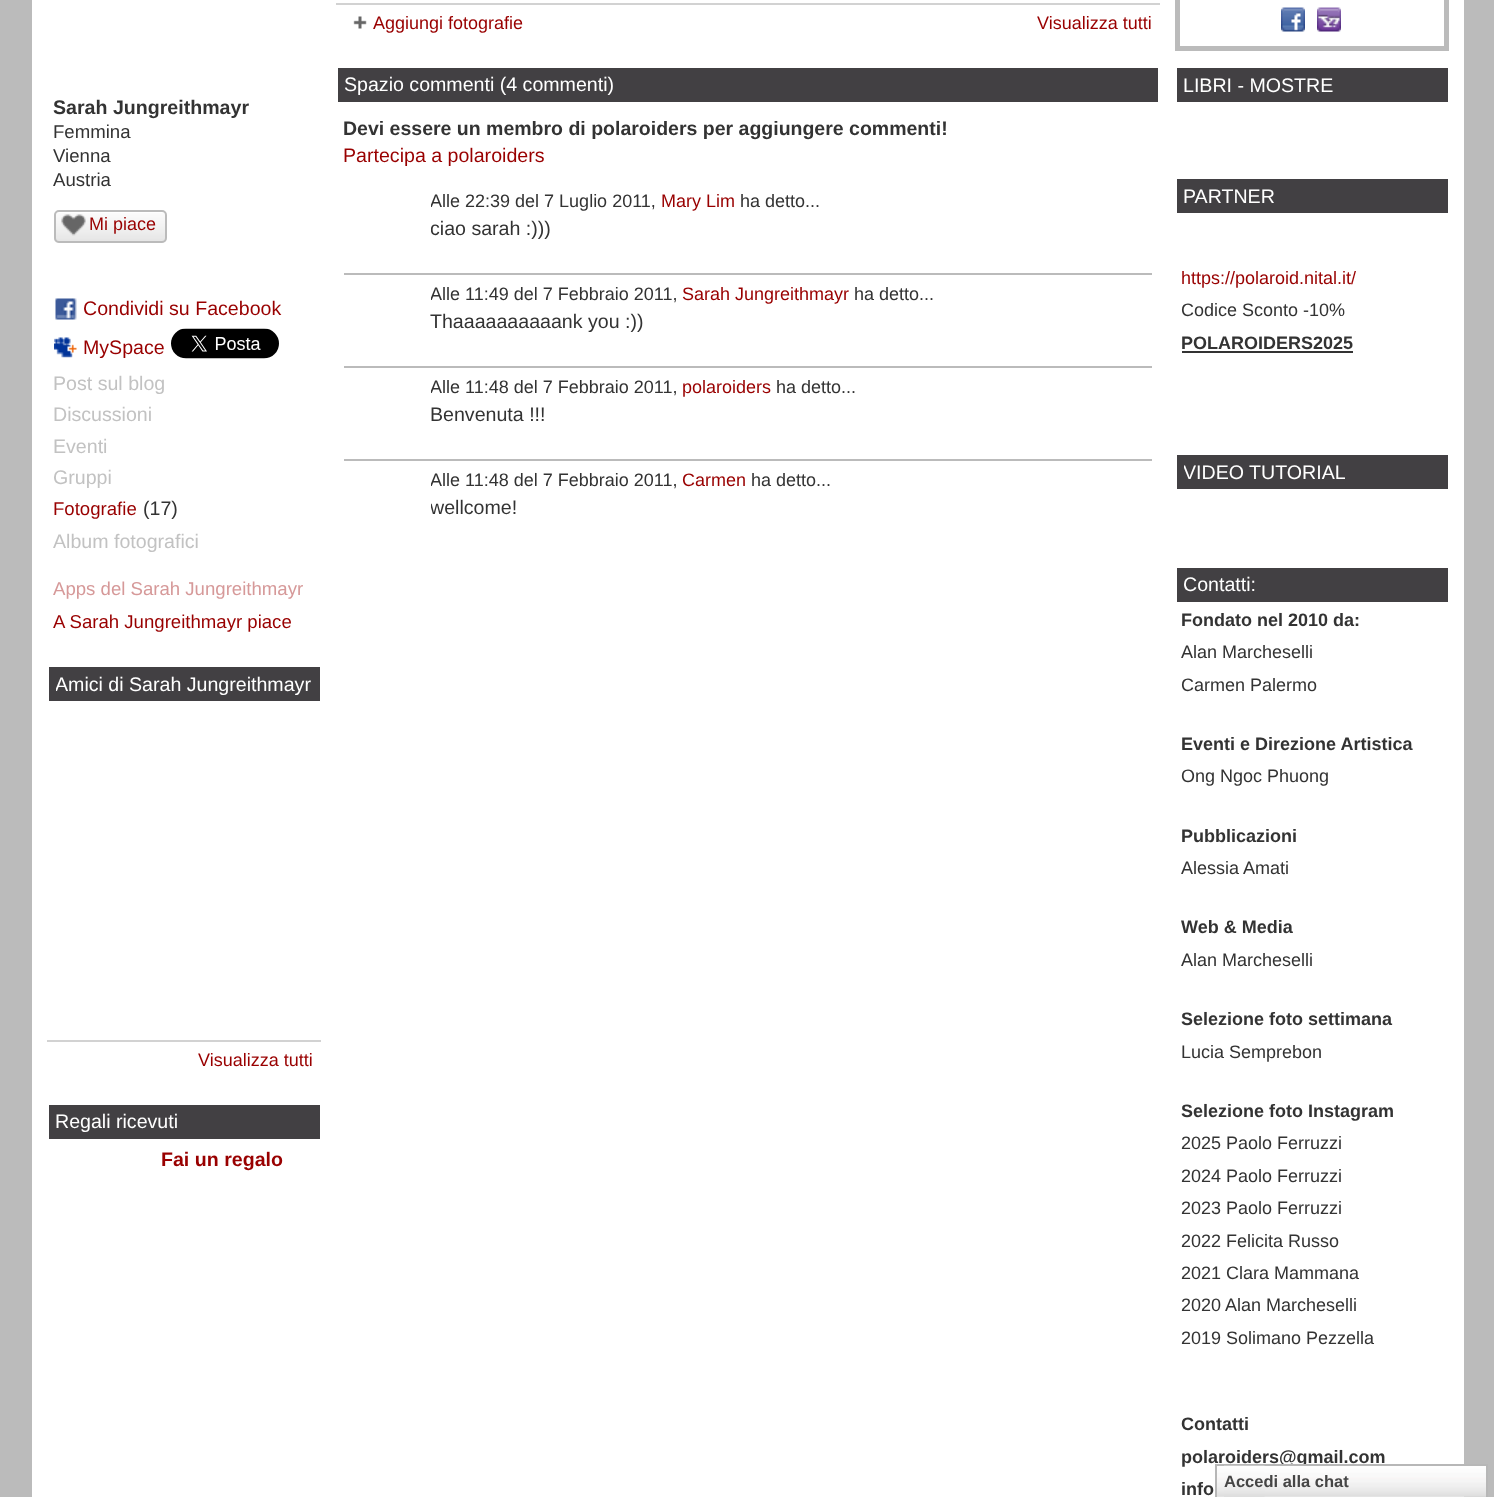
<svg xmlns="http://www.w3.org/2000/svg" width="1494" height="1497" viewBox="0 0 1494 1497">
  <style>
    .t1 { font: bold 19.6px Liberation Sans; fill: #333; }
    .t2 { font: 18.6px Liberation Sans; fill: #333; }
    .t3 { font: 18px Liberation Sans; fill: #900; }
    .t4 { font: 19.6px Liberation Sans; fill: #900; }
    .t5 { font: 19.6px Liberation Sans; fill: #c2c2c2; }
    .t6 { font: 18.6px Liberation Sans; fill: #900; }
    .t7 { font: 19.6px Liberation Sans; fill: #333; }
    .t8 { font: 18.6px Liberation Sans; fill: #d69999; }
    .t9 { font: 19.6px Liberation Sans; fill: #fff; }
    .t10 { font: bold 19.6px Liberation Sans; fill: #900; }
    .t11 { font: bold 19.5px Liberation Sans; fill: #333; }
    .t12 { font: 18px Liberation Sans; fill: #333; }
    .t13 { font: bold 18px Liberation Sans; fill: #333; }
    .t14 { font: bold 16.5px Liberation Sans; fill: #454545; }
  </style>
  <defs>
    <clipPath id="clip1"><rect x="56" y="671" width="255" height="25"/></clipPath>
    <clipPath id="clip2"><rect x="431" y="191" width="669" height="24"/></clipPath>
    <clipPath id="clip3"><rect x="431" y="216" width="669" height="27"/></clipPath>
    <clipPath id="clip4"><rect x="431" y="284" width="669" height="24"/></clipPath>
    <clipPath id="clip5"><rect x="431" y="377" width="669" height="24"/></clipPath>
    <clipPath id="clip6"><rect x="431" y="470" width="669" height="24"/></clipPath>
    <clipPath id="clip7"><rect x="431" y="495" width="669" height="27"/></clipPath>
    <clipPath id="clip8"><rect x="1184" y="459" width="162" height="26"/></clipPath>
    <clipPath id="clip9"><rect x="1184" y="572" width="72" height="25"/></clipPath>
  </defs>
  <rect width="100%" height="100%" fill="#bbb"/>
  <rect x="32" y="0" width="1432" height="1497" fill="#fff"/>
  <text x="53" y="114" class="t1">Sarah Jungreithmayr</text>
  <text x="53" y="138" class="t2">Femmina</text>
  <text x="53" y="162" class="t2">Vienna</text>
  <text x="53" y="186" class="t2">Austria</text>
  <image x="54" y="213" width="113" height="30" href="images/1.png"/>
  <rect x="55" y="211" width="111" height="31" rx="4" fill="none" stroke="#bbb" stroke-width="2"/>
  <image x="61" y="214" width="25" height="22" href="images/2.png"/>
  <text x="89" y="230" class="t3">Mi piace</text>
  <image x="55" y="298" width="22" height="22" href="images/3.png"/>
  <text x="83" y="315" class="t4">Condividi su Facebook</text>
  <image x="54" y="337" width="23" height="21" href="images/4.png"/>
  <text x="83" y="354" class="t4">MySpace</text>
  <image x="171" y="328" width="108" height="31" href="images/5.png"/>
  <text x="53" y="390" class="t5">Post sul blog</text>
  <text x="53" y="421" class="t5">Discussioni</text>
  <text x="53" y="453" class="t5">Eventi</text>
  <text x="53" y="484" class="t5">Gruppi</text>
  <text x="53" y="515" class="t6">Fotografie</text>
  <text x="143" y="515" class="t7">(17)</text>
  <text x="53" y="548" class="t5">Album fotografici</text>
  <text x="53" y="595" class="t8">Apps del Sarah Jungreithmayr</text>
  <text x="53" y="628" class="t6">A Sarah Jungreithmayr piace</text>
  <rect x="49" y="667" width="271" height="34" fill="#424043"/>
  <g clip-path="url(#clip1)">
    <text x="55" y="691" class="t9">Amici di Sarah Jungreithmayr</text>
  </g>
  <rect x="47" y="1040" width="274" height="2" fill="#d2d2d2"/>
  <text x="198" y="1066" class="t3">Visualizza tutti</text>
  <rect x="49" y="1105" width="271" height="34" fill="#424043"/>
  <text x="55" y="1128" class="t9">Regali ricevuti</text>
  <text x="161" y="1166" class="t10">Fai un regalo</text>
  <rect x="336" y="3" width="824" height="2" fill="#d2d2d2"/>
  <image x="353" y="16" width="14" height="13" href="images/6.png"/>
  <text x="373" y="29" class="t3">Aggiungi fotografie</text>
  <text x="1037" y="29" class="t3">Visualizza tutti</text>
  <rect x="338" y="68" width="820" height="34" fill="#424043"/>
  <text x="344" y="91" class="t9">Spazio commenti (4 commenti)</text>
  <text x="343" y="135" class="t11">Devi essere un membro di polaroiders per aggiungere commenti!</text>
  <text x="343" y="162" class="t4">Partecipa a polaroiders</text>
  <rect x="344" y="273" width="808" height="2" fill="#bbb"/>
  <g clip-path="url(#clip2)">
    <text x="430" y="207" class="t12">Alle 22:39 del 7 Luglio 2011,</text>
  </g>
  <text x="661" y="207" class="t3">Mary Lim</text>
  <text x="740" y="207" class="t12">ha detto...</text>
  <g clip-path="url(#clip3)">
    <text x="430" y="235" class="t7">ciao sarah :)))</text>
  </g>
  <rect x="344" y="366" width="808" height="2" fill="#bbb"/>
  <g clip-path="url(#clip4)">
    <text x="430" y="300" class="t12">Alle 11:49 del 7 Febbraio 2011,</text>
  </g>
  <text x="682" y="300" class="t3">Sarah Jungreithmayr</text>
  <text x="854" y="300" class="t12">ha detto...</text>
  <text x="430" y="328" class="t7">Thaaaaaaaaaank you :))</text>
  <rect x="344" y="459" width="808" height="2" fill="#bbb"/>
  <g clip-path="url(#clip5)">
    <text x="430" y="393" class="t12">Alle 11:48 del 7 Febbraio 2011,</text>
  </g>
  <text x="682" y="393" class="t3">polaroiders</text>
  <text x="776" y="393" class="t12">ha detto...</text>
  <text x="430" y="421" class="t7">Benvenuta !!!</text>
  <g clip-path="url(#clip6)">
    <text x="430" y="486" class="t12">Alle 11:48 del 7 Febbraio 2011,</text>
  </g>
  <text x="682" y="486" class="t3">Carmen</text>
  <text x="751" y="486" class="t12">ha detto...</text>
  <g clip-path="url(#clip7)">
    <text x="430" y="514" class="t7">wellcome!</text>
  </g>
  <rect x="1177.5" y="-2.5" width="269" height="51" fill="none" stroke="#bbb" stroke-width="5"/>
  <image x="1281" y="7" width="24" height="25" href="images/7.png"/>
  <image x="1317" y="7" width="24" height="25" href="images/8.png"/>
  <rect x="1177" y="68" width="271" height="34" fill="#424043"/>
  <text x="1183" y="92" class="t9">LIBRI - MOSTRE</text>
  <rect x="1177" y="179" width="271" height="34" fill="#424043"/>
  <text x="1183" y="203" class="t9">PARTNER</text>
  <text x="1181" y="284" class="t3">https://polaroid.nital.it/</text>
  <text x="1181" y="316" class="t12">Codice Sconto -10%</text>
  <text x="1181" y="349" class="t13">POLAROIDERS2025</text>
  <rect x="1182" y="351" width="171" height="2" fill="#333"/>
  <rect x="1177" y="455" width="271" height="34" fill="#424043"/>
  <g clip-path="url(#clip8)">
    <text x="1183" y="479" class="t9">VIDEO TUTORIAL</text>
  </g>
  <rect x="1177" y="568" width="271" height="34" fill="#424043"/>
  <g clip-path="url(#clip9)">
    <text x="1183" y="591" class="t9">Contatti:</text>
  </g>
  <text x="1181" y="626" class="t13">Fondato nel 2010 da:</text>
  <text x="1181" y="658" class="t12">Alan Marcheselli</text>
  <text x="1181" y="691" class="t12">Carmen Palermo</text>
  <text x="1181" y="750" class="t13">Eventi e Direzione Artistica</text>
  <text x="1181" y="782" class="t12">Ong Ngoc Phuong</text>
  <text x="1181" y="842" class="t13">Pubblicazioni</text>
  <text x="1181" y="874" class="t12">Alessia Amati</text>
  <text x="1181" y="933" class="t13">Web &amp; Media</text>
  <text x="1181" y="966" class="t12">Alan Marcheselli</text>
  <text x="1181" y="1025" class="t13">Selezione foto settimana</text>
  <text x="1181" y="1058" class="t12">Lucia Semprebon</text>
  <text x="1181" y="1117" class="t13">Selezione foto Instagram</text>
  <text x="1181" y="1149" class="t12">2025 Paolo Ferruzzi</text>
  <text x="1181" y="1182" class="t12">2024 Paolo Ferruzzi</text>
  <text x="1181" y="1214" class="t12">2023 Paolo Ferruzzi</text>
  <text x="1181" y="1247" class="t12">2022 Felicita Russo</text>
  <text x="1181" y="1279" class="t12">2021 Clara Mammana</text>
  <text x="1181" y="1311" class="t12">2020 Alan Marcheselli</text>
  <text x="1181" y="1344" class="t12">2019 Solimano Pezzella</text>
  <text x="1181" y="1430" class="t13">Contatti</text>
  <text x="1181" y="1463" class="t13">polaroiders@gmail.com</text>
  <text x="1181" y="1495" class="t13">info</text>
  <image x="1217" y="1466" width="269" height="31" href="images/9.png"/>
  <rect x="1216" y="1465" width="271" height="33" fill="none" stroke="#b7b7b7" stroke-width="2"/>
  <image x="1224" y="1465" width="41" height="32" href="images/10.png"/>
  <text x="1224" y="1487" class="t14">Accedi alla chat</text>
</svg>
